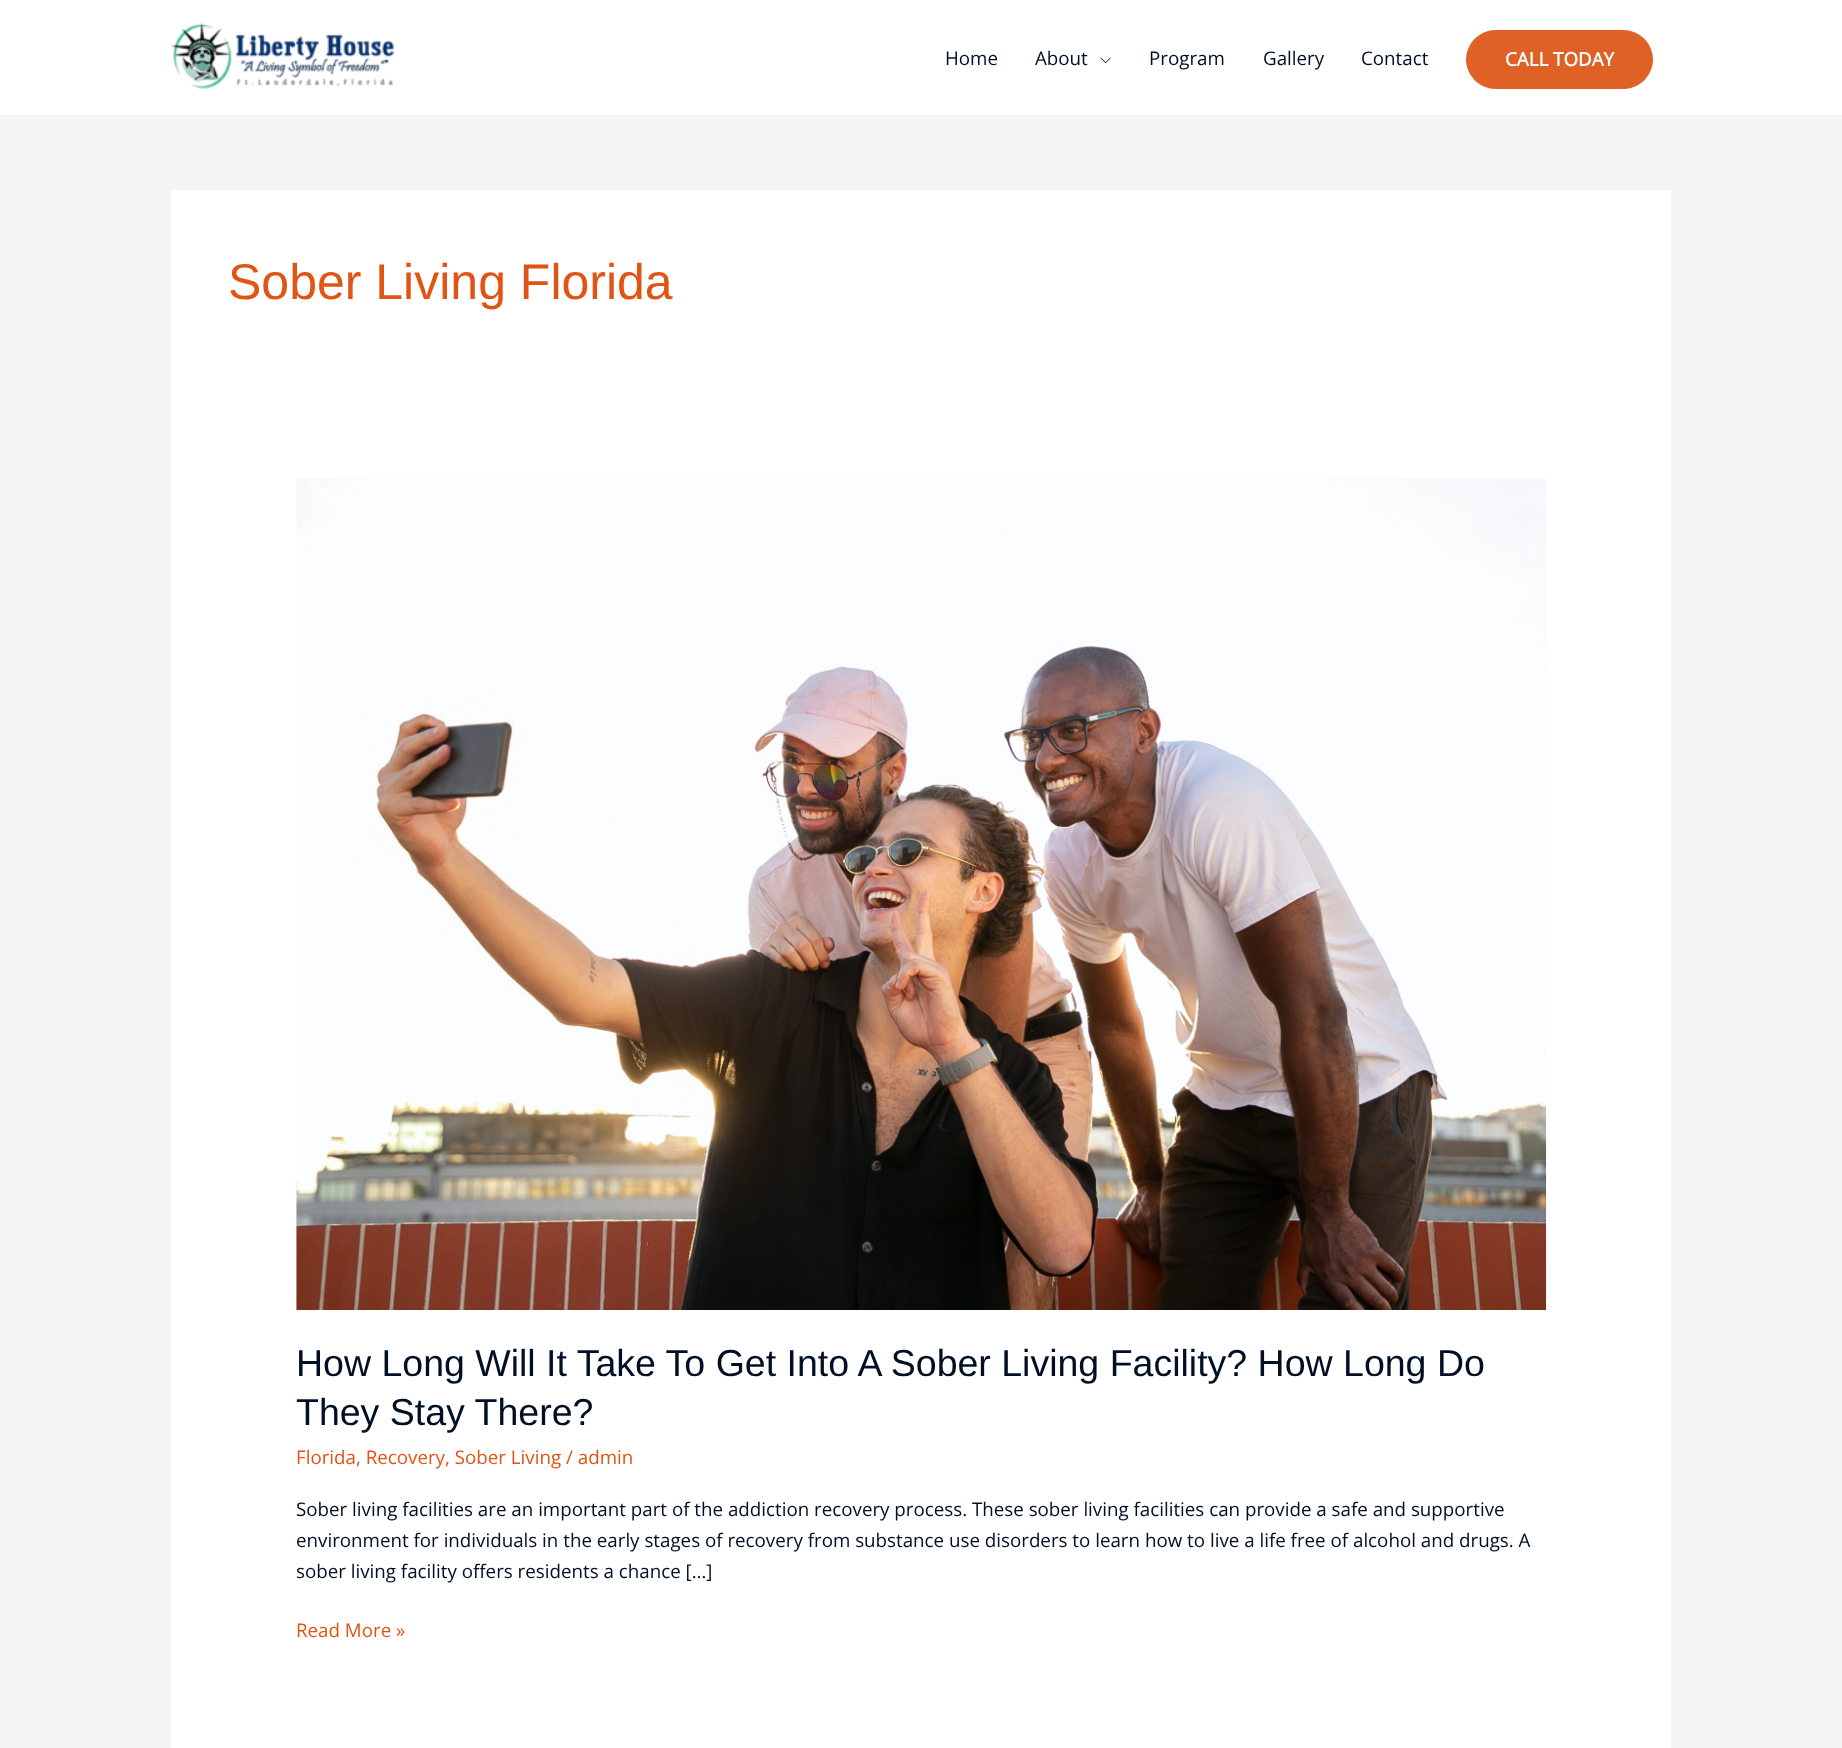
<svg xmlns="http://www.w3.org/2000/svg" width="1842" height="1748" viewBox="0 0 1842 1748">
  <style>
    .t1 { font: 18.75px Open Sans; fill: #000f23; }
    .t2 { font: bold 18.75px Open Sans; fill: #fff; }
    .t3 { font: 50px Liberation Sans; fill: #e05414; }
    .t4 { font: 37.5px Liberation Sans; fill: #000f23; }
    .t5 { font: 18.75px Open Sans; fill: #e05414; }
  </style>
  <rect width="100%" height="100%" fill="#f5f5f5"/>
  <rect x="0" y="0" width="1842" height="115" fill="#fff"/>
  <image x="171" y="22" width="224" height="67" href="images/1.png"/>
  <text x="945" y="65" class="t1">Home</text>
  <text x="1035" y="65" class="t1">About</text>
  <image x="1100" y="57" width="11" height="6" href="images/2.png"/>
  <text x="1149" y="65" class="t1">Program</text>
  <text x="1263" y="65" class="t1">Gallery</text>
  <text x="1361" y="65" class="t1">Contact</text>
  <rect x="1466.5" y="30.5" width="186" height="58" rx="29" fill="#e06126" stroke="#e06126"/>
  <text x="1505" y="66" class="t2">CALL TODAY</text>
  <rect x="171" y="190" width="1500" height="1558" fill="#fff"/>
  <text x="228" y="299" class="t3">Sober Living Florida</text>
  <image x="296" y="478" width="1251" height="832" href="images/3.png"/>
  <text x="296" y="1376" class="t4">How Long Will It Take To Get Into A Sober Living Facility? How Long Do</text>
  <text x="296" y="1425" class="t4">They Stay There?</text>
  <text x="296" y="1464" class="t5">Florida, Recovery, Sober Living / admin</text>
  <text x="296" y="1516" class="t1">Sober living facilities are an important part of the addiction recovery process. These sober living facilities can provide a safe and supportive</text>
  <text x="296" y="1547" class="t1">environment for individuals in the early stages of recovery from substance use disorders to learn how to live a life free of alcohol and drugs. A</text>
  <text x="296" y="1578" class="t1">sober living facility offers residents a chance […]</text>
  <text x="296" y="1637" class="t5">Read More »</text>
</svg>
